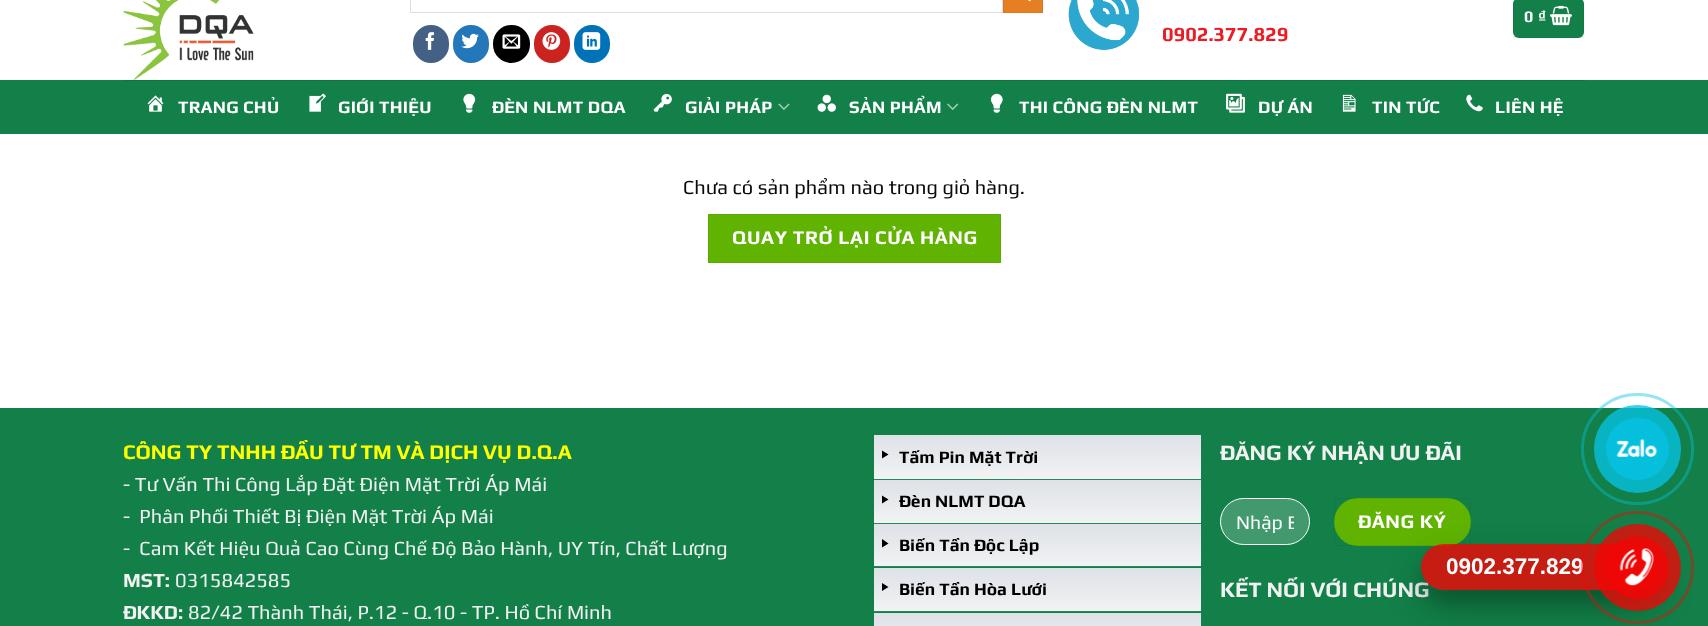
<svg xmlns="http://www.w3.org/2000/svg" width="1708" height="626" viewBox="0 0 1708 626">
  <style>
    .t1 { font: bold 16px Play; fill: #fff; }
    .t2 { font: bold 16px Liberation Sans; fill: #fff; }
    .t3 { font: bold 20px Play; fill: #ed1c24; }
    .t4 { font: bold 17.5px Play; letter-spacing: 0.3px; fill: #fff; }
    .t5 { font: 20px Play; fill: #0a0a0a; }
    .t6 { font: bold 19.4px Play; letter-spacing: 0.6px; fill: #fff; }
    .t7 { font: bold 21px Play; fill: #ff0; }
    .t8 { font: 20px Play; fill: #f1f1f1; }
    .t9 { font: bold 20px Play; fill: #f1f1f1; }
    .t10 { font: bold 17.5px Play; fill: #000; }
    .t11 { font: bold 22px Play; fill: #f1f1f1; }
    .t12 { font: 19.4px Play; fill: #fff; }
    .t13 { font: bold 22.5px Liberation Sans; fill: #fff; }
  </style>
  <defs>
    <linearGradient id="g1" gradientUnits="userSpaceOnUse" x1="1038" y1="435" x2="1038" y2="479"><stop offset="0" stop-color="#dee1e6"/><stop offset="1" stop-color="#f1f3f4"/></linearGradient>
    <linearGradient id="g2" gradientUnits="userSpaceOnUse" x1="1038" y1="480" x2="1038" y2="523"><stop offset="0" stop-color="#dee1e6"/><stop offset="1" stop-color="#f1f3f4"/></linearGradient>
    <linearGradient id="g3" gradientUnits="userSpaceOnUse" x1="1038" y1="524" x2="1038" y2="566"><stop offset="0" stop-color="#dee1e6"/><stop offset="1" stop-color="#f1f3f4"/></linearGradient>
    <linearGradient id="g4" gradientUnits="userSpaceOnUse" x1="1038" y1="568" x2="1038" y2="611"><stop offset="0" stop-color="#dee1e6"/><stop offset="1" stop-color="#f1f3f4"/></linearGradient>
    <linearGradient id="g5" gradientUnits="userSpaceOnUse" x1="1038" y1="613" x2="1038" y2="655"><stop offset="0" stop-color="#dee1e6"/><stop offset="1" stop-color="#f1f3f4"/></linearGradient>
    <clipPath id="clip1"><rect x="1236" y="510" width="58" height="23"/></clipPath>
    <clipPath id="clip2"><path d="M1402 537H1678V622H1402ZM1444 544H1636C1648.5 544 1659 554.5 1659 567C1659 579.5 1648.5 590 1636 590H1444C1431.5 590 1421 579.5 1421 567C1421 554.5 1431.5 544 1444 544Z" clip-rule="evenodd"/></clipPath>
    <clipPath id="clip3"><path d="M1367 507H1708V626H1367ZM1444 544H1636C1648.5 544 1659 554.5 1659 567C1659 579.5 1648.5 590 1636 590H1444C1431.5 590 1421 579.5 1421 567C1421 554.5 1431.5 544 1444 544Z" clip-rule="evenodd"/></clipPath>
  </defs>
  <rect width="100%" height="100%" fill="#fff"/>
  <image x="123" y="0" width="131" height="80" href="images/1.png"/>
  <rect x="1513" y="-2" width="71" height="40" rx="6" fill="#128048"/>
  <rect x="1513.5" y="-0.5" width="70" height="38" fill="none" stroke="#0000000d"/>
  <text x="1524" y="22" class="t1">0</text>
  <text x="1538" y="22" class="t2">₫</text>
  <image x="1550" y="5" width="22" height="21" href="images/2.png"/>
  <rect x="410.5" y="-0.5" width="592" height="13" fill="none" stroke="#ddd"/>
  <rect x="1003.5" y="-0.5" width="39" height="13" fill="#e67e22" stroke="#db7820"/>
  <image x="1028" y="0" width="3" height="2" href="images/3.png"/>
  <rect x="414.5" y="26.5" width="33" height="35" rx="16.5" fill="#446084" stroke="#446084" stroke-width="3"/>
  <image x="425" y="32" width="9" height="18" href="images/4.png"/>
  <rect x="454.5" y="26.5" width="33" height="35" rx="16.5" fill="#2478ba" stroke="#2478ba" stroke-width="3"/>
  <image x="461" y="33" width="18" height="16" href="images/5.png"/>
  <rect x="494.5" y="26.5" width="34" height="35" rx="17" fill="#000" stroke="#000" stroke-width="3"/>
  <image x="502" y="34" width="19" height="15" href="images/6.png"/>
  <rect x="535.5" y="26.5" width="33" height="35" rx="16.5" fill="#cb2320" stroke="#cb2320" stroke-width="3"/>
  <image x="542" y="32" width="19" height="18" href="images/7.png"/>
  <rect x="575.5" y="26.5" width="33" height="35" rx="16.5" fill="#0072b7" stroke="#0072b7" stroke-width="3"/>
  <image x="582" y="32" width="19" height="18" href="images/8.png"/>
  <image x="1068" y="0" width="71" height="50" href="images/9.png"/>
  <text x="1162" y="41" class="t3">0902.377.829</text>
  <rect x="0" y="80" width="1708" height="54" fill="#128048"/>
  <rect x="124" y="80" width="1462" height="1" fill="#117442"/>
  <image x="147" y="95" width="17" height="17" href="images/10.png"/>
  <text x="178" y="113" class="t4">TRANG CHỦ</text>
  <image x="309" y="93" width="17" height="19" href="images/11.png"/>
  <text x="338" y="113" class="t4">GIỚI THIỆU</text>
  <image x="463" y="93" width="13" height="20" href="images/12.png"/>
  <text x="492" y="113" class="t4">ĐÈN NLMT DQA</text>
  <image x="653" y="93" width="19" height="19" href="images/13.png"/>
  <text x="685" y="113" class="t4">GIẢI PHÁP</text>
  <image x="778" y="103" width="12" height="7" href="images/14.png"/>
  <image x="817" y="94" width="19" height="18" href="images/15.png"/>
  <text x="849" y="113" class="t4">SẢN PHẨM</text>
  <image x="947" y="103" width="12" height="7" href="images/16.png"/>
  <image x="990" y="93" width="13" height="20" href="images/17.png"/>
  <text x="1019" y="113" class="t4">THI CÔNG ĐÈN NLMT</text>
  <image x="1226" y="93" width="19" height="20" href="images/18.png"/>
  <text x="1258" y="113" class="t4">DỰ ÁN</text>
  <image x="1342" y="94" width="14" height="18" href="images/19.png"/>
  <text x="1372" y="113" class="t4">TIN TỨC</text>
  <image x="1466" y="94" width="17" height="18" href="images/20.png"/>
  <text x="1495" y="113" class="t4">LIÊN HỆ</text>
  <text x="683" y="194" class="t5">Chưa có sản phẩm nào trong giỏ hàng.</text>
  <rect x="708.5" y="214.5" width="292" height="48" fill="#60b301" stroke="#5baa01"/>
  <text x="732" y="244" class="t6">QUAY TRỞ LẠI CỬA HÀNG</text>
  <rect x="0" y="408" width="1708" height="218" fill="#128048"/>
  <text x="123" y="459" class="t7">CÔNG TY TNHH ĐẦU TƯ TM VÀ DỊCH VỤ D.Q.A</text>
  <text x="123" y="491" class="t8">- Tư Vấn Thi Công Lắp Đặt Điện Mặt Trời Áp Mái</text>
  <text x="123" y="523" class="t8" xml:space="preserve">-  Phân Phối Thiết Bị Điện Mặt Trời Áp Mái</text>
  <text x="123" y="555" class="t8" xml:space="preserve">-  Cam Kết Hiệu Quả Cao Cùng Chế Độ Bảo Hành, UY Tín, Chất Lượng</text>
  <text x="123" y="587" class="t9">MST:</text>
  <text x="175" y="587" class="t8">0315842585</text>
  <text x="123" y="619" class="t9">ĐKKD:</text>
  <text x="188" y="619" class="t8">82/42 Thành Thái, P.12 - Q.10 - TP. Hồ Chí Minh</text>
  <rect x="874" y="435" width="327" height="44" fill="url(#g1)"/>
  <path d="M882 450.5L888.5 454.5L882 458.5Z" fill="#000"/>
  <text x="899" y="463" class="t10">Tấm Pin Mặt Trời</text>
  <rect x="874" y="479" width="327" height="1" fill="#258a57"/>
  <rect x="874" y="480" width="327" height="43" fill="url(#g2)"/>
  <path d="M882 495.5L888.5 499.5L882 503.5Z" fill="#000"/>
  <text x="899" y="507" class="t10">Đèn NLMT DQA</text>
  <rect x="874" y="523" width="327" height="1" fill="#258a57"/>
  <rect x="874" y="524" width="327" height="42" fill="url(#g3)"/>
  <path d="M882 539L888.5 543.5L882 547.5Z" fill="#000"/>
  <text x="899" y="551" class="t10">Biến Tần Độc Lập</text>
  <rect x="874" y="566" width="327" height="1" fill="#258a57"/>
  <rect x="874" y="568" width="327" height="43" fill="url(#g4)"/>
  <path d="M882 583L888.5 587L882 591Z" fill="#000"/>
  <text x="899" y="595" class="t10">Biến Tần Hòa Lưới</text>
  <rect x="874" y="611" width="327" height="1" fill="#258a57"/>
  <rect x="874" y="613" width="327" height="13" fill="url(#g5)"/>
  <text x="1220" y="460" class="t11">ĐĂNG KÝ NHẬN ƯU ĐÃI</text>
  <rect x="1220.5" y="498.5" width="89" height="46" rx="23" fill="#41996d" stroke="#fff"/>
  <g clip-path="url(#clip1)">
    <text x="1236" y="529" class="t12">Nhập E</text>
  </g>
  <rect x="1334" y="498" width="137" height="48" rx="24" fill="#60b301"/>
  <rect x="1334.5" y="498.5" width="136" height="47" fill="none" stroke="#0000000d"/>
  <text x="1358" y="528" class="t6">ĐĂNG KÝ</text>
  <text x="1220" y="597" class="t11">KẾT NỐI VỚI CHÚNG</text>
  <rect x="1582.5" y="394.5" width="110" height="109" rx="54.5" fill="none" stroke="#06c2e36b" stroke-width="3"/>
  <rect x="1594" y="405" width="87" height="88" rx="43.5" fill="#06c2e3c9"/>
  <rect x="1606" y="418" width="63" height="62" rx="31" fill="#06bfdd"/>
  <image x="1616" y="439" width="42" height="18" href="images/21.png"/>
  <g clip-path="url(#clip2)">
    <rect x="1421" y="556" width="238" height="47" rx="23.5" fill="#0000001a" filter="blur(6px)"/>
  </g>
  <g clip-path="url(#clip3)">
    <rect x="1421" y="561" width="238" height="47" rx="23.5" fill="#00000040" filter="blur(17.5px)"/>
  </g>
  <rect x="1421" y="544" width="238" height="46" rx="23" fill="#f00606cf"/>
  <text x="1446" y="574" class="t13">0902.377.829</text>
  <circle cx="1637.5" cy="567.5" r="55" fill="none" stroke="#f006066b" stroke-width="3"/>
  <circle cx="1637.5" cy="567.5" r="43.5" fill="#f00606c9"/>
  <circle cx="1637.5" cy="567.5" r="31.5" fill="#f00606cf"/>
  <image x="1619" y="548" width="35" height="38" href="images/22.png"/>
</svg>
